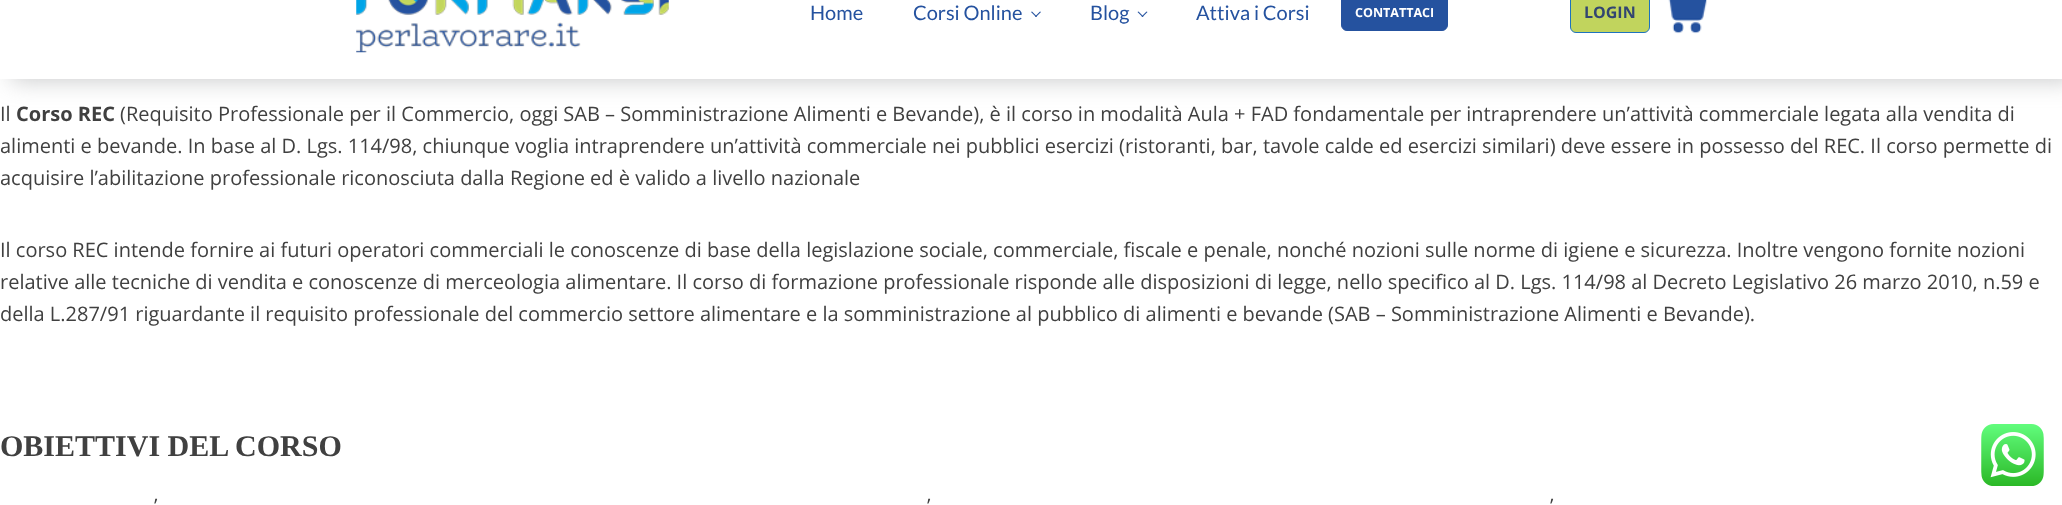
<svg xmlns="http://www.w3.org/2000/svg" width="2062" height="505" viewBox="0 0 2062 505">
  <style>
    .t1 { font: 20px Lato; fill: #25529f; }
    .t2 { font: bold 12.5px Open Sans; fill: #fff; }
    .t3 { font: bold 16px Open Sans; fill: #324571; }
    .t4 { font: 20px Open Sans; fill: #404040; }
    .t5 { font: bold 20px Open Sans; fill: #404040; }
    .t6 { font: bold 30px Liberation Serif; fill: #404040; }
  </style>
  <rect width="100%" height="100%" fill="#fff"/>
  <rect x="11" y="-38" width="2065" height="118" fill="#93959785" filter="blur(12.5px)"/>
  <rect x="0" y="0" width="2062" height="79" fill="#fff"/>
  <image x="356" y="0" width="313" height="53" href="images/1.png"/>
  <text x="810" y="20" class="t1">Home</text>
  <text x="913" y="20" class="t1">Corsi Online</text>
  <path d="M1041 12L1036 17L1035 16.5L1040 11.5Z" fill="#25529f"/>
  <path d="M1037 16.5L1036 17L1031 12L1032 11.5Z" fill="#25529f"/>
  <text x="1090" y="20" class="t1">Blog</text>
  <path d="M1147.5 12L1142.5 17L1141.5 16.5L1146.5 11.5Z" fill="#25529f"/>
  <path d="M1143.5 16.5L1142.5 17L1137.5 12L1138.5 11.5Z" fill="#25529f"/>
  <text x="1196" y="20" class="t1">Attiva i Corsi</text>
  <rect x="1341.5" y="-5.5" width="106" height="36" rx="5.5" fill="#25529f" stroke="#25529f"/>
  <text x="1355" y="17" class="t2">CONTATTACI</text>
  <rect x="1570.5" y="-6.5" width="79" height="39" rx="5.5" fill="#c1d45d" stroke="#1e73be"/>
  <text x="1584" y="18" class="t3">LOGIN</text>
  <image x="1668" y="0" width="39" height="34" href="images/2.png"/>
  <text x="0" y="121" class="t4">Il</text>
  <text x="16" y="121" class="t5">Corso REC</text>
  <text x="120" y="121" class="t4">(Requisito Professionale per il Commercio, oggi SAB – Somministrazione Alimenti e Bevande), è il corso in modalità Aula + FAD fondamentale per intraprendere un’attività commerciale legata alla vendita di</text>
  <text x="0" y="153" class="t4">alimenti e bevande. In base al D. Lgs. 114/98, chiunque voglia intraprendere un’attività commerciale nei pubblici esercizi (ristoranti, bar, tavole calde ed esercizi similari) deve essere in possesso del REC. Il corso permette di</text>
  <text x="0" y="185" class="t4">acquisire l’abilitazione professionale riconosciuta dalla Regione ed è valido a livello nazionale</text>
  <text x="0" y="257" class="t4">Il corso REC intende fornire ai futuri operatori commerciali le conoscenze di base della legislazione sociale, commerciale, fiscale e penale, nonché nozioni sulle norme di igiene e sicurezza. Inoltre vengono fornite nozioni</text>
  <text x="0" y="289" class="t4">relative alle tecniche di vendita e conoscenze di merceologia alimentare. Il corso di formazione professionale risponde alle disposizioni di legge, nello specifico al D. Lgs. 114/98 al Decreto Legislativo 26 marzo 2010, n.59 e</text>
  <text x="0" y="321" class="t4">della L.287/91 riguardante il requisito professionale del commercio settore alimentare e la somministrazione al pubblico di alimenti e bevande (SAB – Somministrazione Alimenti e Bevande).</text>
  <text x="0" y="456" class="t6">OBIETTIVI DEL CORSO</text>
  <text x="154" y="513" class="t4">’</text>
  <text x="927" y="513" class="t4">’</text>
  <text x="1550" y="513" class="t4">’</text>
  <image x="1981" y="424" width="63" height="62" href="images/3.png"/>
</svg>
